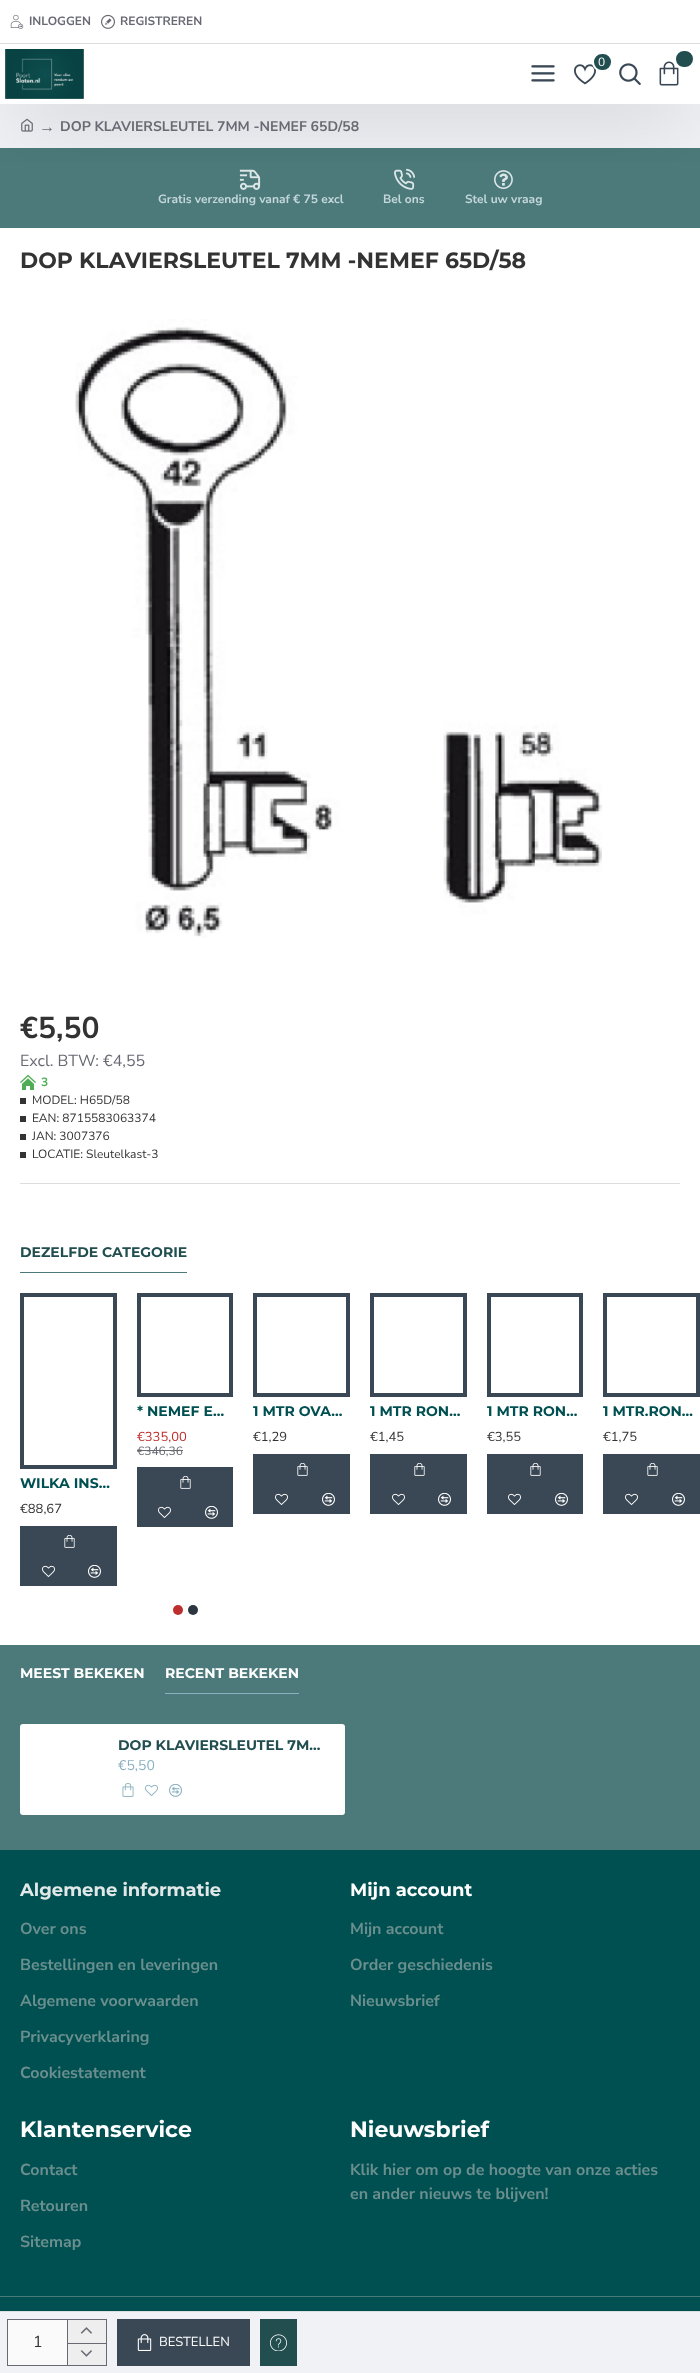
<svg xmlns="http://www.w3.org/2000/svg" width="700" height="2373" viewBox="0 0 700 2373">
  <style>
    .t1 { font: 200 12px Nunito Sans; fill: #696973; }
    .t2 { font: 200 12px 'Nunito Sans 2'; fill: #fff; }
    .t3 { font: 16px Liberation Serif; fill: #696973; }
    .t4 { font: 200 14px Nunito Sans; fill: #696973; }
    .t5 { font: 200 12px Nunito Sans; fill: #c3d7db; }
    .t6 { font: 100 22px Montserrat; fill: #333; }
    .t7 { font: 200 30px Nunito Sans; fill: #333; }
    .t8 { font: 200 16px 'Nunito Sans 2'; fill: #696973; }
    .t9 { font: 200 12px Nunito Sans; fill: #50ad55; }
    .t10 { font: 200 12px 'Nunito Sans 2'; fill: #333; }
    .t11 { font: 200 16px 'Nunito Sans 2'; fill: #333; }
    .t12 { font: 200 13px 'Nunito Sans 2'; fill: #fff; }
    .t13 { font: 100 14px Montserrat; fill: #224e50; }
    .t14 { font: 100 14px Montserrat; fill: #004f51; }
    .t15 { font: 200 13px 'Nunito Sans 2'; fill: #bd2f2c; }
    .t16 { font: 200 12px 'Nunito Sans 2'; fill: #696973; }
    .t17 { font: 200 13px 'Nunito Sans 2'; fill: #333; }
    .t18 { font: 100 14px Montserrat; fill: #fff; }
    .t19 { font: 200 14px 'Nunito Sans 2'; fill: #8bb1c0; }
    .t20 { font: 100 18px Montserrat; fill: #e2e8e8; }
    .t21 { font: 200 16px Nunito Sans; fill: #6a8f8e; }
    .t22 { font: 100 18px Montserrat; fill: #fff; }
    .t23 { font: 100 22px Montserrat; fill: #fff; }
  </style>
  <defs>
    <clipPath id="clip1"><rect x="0" y="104" width="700" height="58"/></clipPath>
  </defs>
  <rect width="100%" height="100%" fill="#fff"/>
  <rect x="0" y="104" width="700" height="44" fill="#f0f2f5"/>
  <image x="21" y="118" width="12" height="14" href="images/8.png"/>
  <rect x="0" y="148" width="700" height="80" fill="#4c7a7a"/>
  <image x="239" y="169" width="22" height="21" href="images/9.png"/>
  <image x="394" y="168" width="21" height="22" href="images/10.png"/>
  <image x="494" y="170" width="19" height="19" href="images/11.png"/>
  <g clip-path="url(#clip1)">
    <rect x="10" y="69" width="680" height="40" fill="#00000033" filter="blur(45px)"/>
  </g>
  <rect x="0" y="0" width="700" height="43" fill="#fff"/>
  <rect x="0" y="43" width="700" height="1" fill="#ddd"/>
  <image x="10" y="14" width="14" height="15" href="images/1.png"/>
  <text x="29" y="25" class="t1">INLOGGEN</text>
  <image x="101" y="14" width="14" height="15" href="images/2.png"/>
  <text x="120" y="25" class="t1">REGISTREREN</text>
  <image x="5" y="49" width="79" height="50" href="images/3.png"/>
  <image x="574" y="64" width="22" height="21" href="images/4.png"/>
  <rect x="593" y="53" width="19" height="18" rx="9" fill="#224e50" stroke="#fff" stroke-width="2"/>
  <text x="598" y="66" class="t2">0</text>
  <image x="659" y="61" width="20" height="25" href="images/5.png"/>
  <rect x="675" y="50" width="19" height="18" rx="9" fill="#224e50" stroke="#fff" stroke-width="2"/>
  <image x="531" y="65" width="24" height="17" href="images/6.png"/>
  <image x="619" y="63" width="22" height="22" href="images/7.png"/>
  <text x="39" y="132" class="t3">→</text>
  <text x="60" y="131" class="t4">DOP KLAVIERSLEUTEL 7MM -NEMEF 65D/58</text>
  <text x="158" y="203" class="t5">Gratis verzending vanaf € 75 excl</text>
  <text x="383" y="203" class="t5">Bel ons</text>
  <text x="465" y="203" class="t5">Stel uw vraag</text>
  <text x="20" y="268" class="t6">DOP KLAVIERSLEUTEL 7MM -NEMEF 65D/58</text>
  <image x="75" y="319" width="527" height="619" href="images/12.png"/>
  <text x="20" y="1038" class="t7">€5,50</text>
  <text x="20" y="1066" class="t8">Excl. BTW: €4,55</text>
  <rect x="20" y="1183" width="660" height="1" fill="#ddd"/>
  <image x="20" y="1074" width="16" height="16" href="images/13.png"/>
  <text x="41" y="1086" class="t9">3</text>
  <rect x="20" y="1098" width="6" height="6" fill="#333"/>
  <text x="32" y="1104" class="t10">MODEL: H65D/58</text>
  <rect x="20" y="1116" width="6" height="6" fill="#333"/>
  <text x="32" y="1122" class="t10">EAN: 8715583063374</text>
  <rect x="20" y="1134" width="6" height="6" fill="#333"/>
  <text x="32" y="1140" class="t10">JAN: 3007376</text>
  <rect x="20" y="1152" width="6" height="6" fill="#333"/>
  <text x="32" y="1158" class="t10">LOCATIE: Sleutelkast-3</text>
  <rect x="0" y="2312" width="700" height="61" fill="#f0f2f5"/>
  <rect x="0" y="2311" width="700" height="1" fill="#ddd"/>
  <rect x="7.5" y="2319.5" width="99" height="46" fill="none" stroke="#696973"/>
  <rect x="8" y="2320" width="59" height="45" fill="#fafafa"/>
  <text x="33" y="2347" class="t11">1</text>
  <rect x="68" y="2320" width="38" height="23" fill="#eee"/>
  <rect x="67" y="2320" width="1" height="23" fill="#696973"/>
  <image x="80" y="2327" width="12" height="7" href="images/14.png"/>
  <rect x="68" y="2344" width="38" height="21" fill="#eee"/>
  <rect x="67" y="2343" width="39" height="1" fill="#696973"/>
  <rect x="67" y="2343" width="1" height="22" fill="#696973"/>
  <image x="80" y="2350" width="12" height="7" href="images/15.png"/>
  <rect x="117" y="2319" width="133" height="47" fill="#3a4754"/>
  <image x="137" y="2334" width="15" height="17" href="images/16.png"/>
  <text x="159" y="2346" class="t12">BESTELLEN</text>
  <rect x="260" y="2319" width="37" height="47" fill="#224e50"/>
  <image x="270" y="2334" width="17" height="17" href="images/17.png"/>
  <rect x="20" y="1272" width="167" height="1" fill="#4c7a7a"/>
  <text x="20" y="1257" class="t13">DEZELFDE CATEGORIE</text>
  <rect x="139" y="1295" width="92" height="100" fill="none" stroke="#3a4754" stroke-width="4"/>
  <text x="137" y="1416" class="t14">* NEMEF E…</text>
  <text x="137" y="1441" class="t15">€335,00</text>
  <text x="137" y="1455" class="t16">€346,36</text>
  <rect x="137" y="1450" width="46" height="1" fill="#696973"/>
  <rect x="137" y="1467" width="96" height="60" fill="#3a4754"/>
  <image x="180" y="1476" width="11" height="13" href="images/18.png"/>
  <image x="158" y="1506" width="13" height="12" href="images/19.png"/>
  <image x="205" y="1506" width="13" height="13" href="images/20.png"/>
  <rect x="255" y="1295" width="93" height="100" fill="none" stroke="#3a4754" stroke-width="4"/>
  <text x="253" y="1416" class="t14">1 MTR OVA…</text>
  <text x="253" y="1441" class="t17">€1,29</text>
  <rect x="253" y="1454" width="97" height="60" fill="#3a4754"/>
  <image x="297" y="1463" width="11" height="13" href="images/18.png"/>
  <image x="275" y="1493" width="13" height="12" href="images/19.png"/>
  <image x="322" y="1493" width="13" height="13" href="images/20.png"/>
  <rect x="372" y="1295" width="93" height="100" fill="none" stroke="#3a4754" stroke-width="4"/>
  <text x="370" y="1416" class="t14">1 MTR RON…</text>
  <text x="370" y="1441" class="t17">€1,45</text>
  <rect x="370" y="1454" width="97" height="60" fill="#3a4754"/>
  <image x="414" y="1463" width="11" height="13" href="images/18.png"/>
  <image x="392" y="1493" width="13" height="12" href="images/19.png"/>
  <image x="438" y="1493" width="13" height="13" href="images/20.png"/>
  <rect x="489" y="1295" width="92" height="100" fill="none" stroke="#3a4754" stroke-width="4"/>
  <text x="487" y="1416" class="t14">1 MTR RON…</text>
  <text x="487" y="1441" class="t17">€3,55</text>
  <rect x="487" y="1454" width="96" height="60" fill="#3a4754"/>
  <image x="530" y="1463" width="11" height="13" href="images/18.png"/>
  <image x="508" y="1493" width="13" height="12" href="images/19.png"/>
  <image x="555" y="1493" width="13" height="13" href="images/20.png"/>
  <rect x="605" y="1295" width="93" height="100" fill="none" stroke="#3a4754" stroke-width="4"/>
  <text x="603" y="1416" class="t14">1 MTR.RON…</text>
  <text x="603" y="1441" class="t17">€1,75</text>
  <rect x="603" y="1454" width="97" height="60" fill="#3a4754"/>
  <image x="647" y="1463" width="11" height="13" href="images/18.png"/>
  <image x="625" y="1493" width="13" height="12" href="images/19.png"/>
  <image x="672" y="1493" width="13" height="13" href="images/20.png"/>
  <rect x="22" y="1295" width="93" height="172" fill="none" stroke="#3a4754" stroke-width="4"/>
  <text x="20" y="1488" class="t14">WILKA INS…</text>
  <text x="20" y="1513" class="t17">€88,67</text>
  <rect x="20" y="1526" width="97" height="60" fill="#3a4754"/>
  <image x="64" y="1535" width="11" height="13" href="images/18.png"/>
  <image x="42" y="1565" width="13" height="12" href="images/19.png"/>
  <image x="88" y="1565" width="13" height="13" href="images/20.png"/>
  <circle cx="178" cy="1610" r="5" fill="#bd2f2c"/>
  <circle cx="193" cy="1610" r="5" fill="#2c3640"/>
  <rect x="0" y="1850" width="700" height="461" fill="#004f51"/>
  <rect x="0" y="1645" width="700" height="205" fill="#4c7a7a"/>
  <text x="20" y="1678" class="t18">MEEST BEKEKEN</text>
  <rect x="165" y="1693" width="134" height="1" fill="#8bb1c0"/>
  <text x="165" y="1678" class="t18">RECENT BEKEKEN</text>
  <rect x="20" y="1724" width="325" height="91" rx="3" fill="#fff"/>
  <text x="118" y="1750" class="t13">DOP KLAVIERSLEUTEL 7M…</text>
  <text x="118" y="1770" class="t19">€5,50</text>
  <image x="122" y="1783" width="12" height="14" href="images/21.png"/>
  <image x="145" y="1784" width="13" height="12" href="images/22.png"/>
  <image x="169" y="1784" width="13" height="13" href="images/23.png"/>
  <text x="20" y="1896" class="t20">Algemene informatie</text>
  <text x="20" y="1934" class="t21">Over ons</text>
  <text x="20" y="1970" class="t21">Bestellingen en leveringen</text>
  <text x="20" y="2006" class="t21">Algemene voorwaarden</text>
  <text x="20" y="2042" class="t21">Privacyverklaring</text>
  <text x="20" y="2078" class="t21">Cookiestatement</text>
  <text x="350" y="1896" class="t22">Mijn account</text>
  <text x="350" y="1934" class="t21">Mijn account</text>
  <text x="350" y="1970" class="t21">Order geschiedenis</text>
  <text x="350" y="2006" class="t21">Nieuwsbrief</text>
  <text x="20" y="2137" class="t23">Klantenservice</text>
  <text x="20" y="2175" class="t21">Contact</text>
  <text x="20" y="2211" class="t21">Retouren</text>
  <text x="20" y="2247" class="t21">Sitemap</text>
  <text x="350" y="2137" class="t23">Nieuwsbrief</text>
  <text x="350" y="2175" class="t21">Klik hier om op de hoogte van onze acties</text>
  <text x="350" y="2199" class="t21">en ander nieuws te blijven!</text>
  <rect x="0" y="2296" width="700" height="1" fill="#4c7a7a"/>
</svg>
